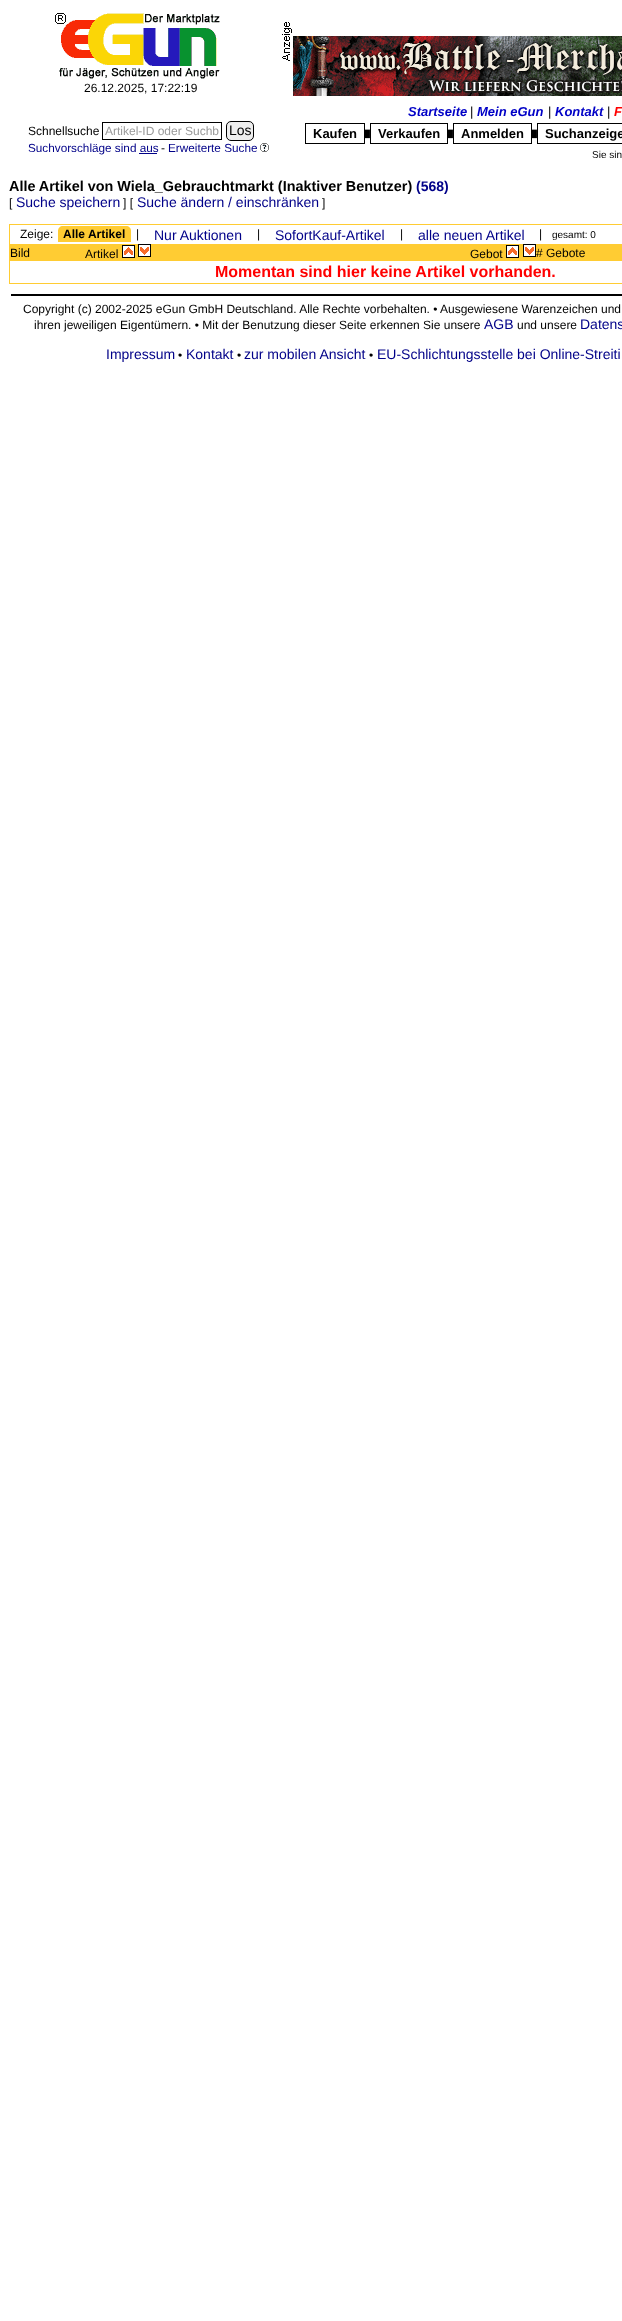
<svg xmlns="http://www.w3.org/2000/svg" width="622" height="2321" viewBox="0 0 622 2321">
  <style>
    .t1 { font: 12px Liberation Sans; fill: #000; }
    .t2 { font: 12px Liberation Sans; fill: #999; }
    .t3 { font: 14px Liberation Sans; fill: #000; }
    .t4 { font: 11.75px Liberation Sans; fill: #008; }
    .t5 { font: italic bold 13px Liberation Sans; fill: #0000c6; }
    .t6 { font: 13px Liberation Sans; fill: #000; }
    .t7 { font: italic bold 13px Liberation Sans; fill: #f00; }
    .t8 { font: bold 13px Liberation Sans; fill: #000; }
    .t9 { font: 7px Liberation Sans; fill: #000; }
    .t10 { font: 10px Liberation Sans; fill: #000; }
    .t11 { font: bold 14.4px Liberation Sans; fill: #000; }
    .t12 { font: bold 14px Liberation Sans; fill: #008; }
    .t13 { font: 14px Liberation Sans; fill: #008; }
    .t14 { font: bold 12px Liberation Sans; fill: #000; }
    .t15 { font: bold 16px Liberation Sans; fill: #f00; }
  </style>
  <rect width="100%" height="100%" fill="#fff"/>
  <image x="55" y="13" width="165" height="66" href="images/1.png"/>
  <text x="84" y="92" class="t1">26.12.2025, 17:22:19</text>
  <image x="282" y="22" width="10" height="39" href="images/2.png"/>
  <image x="293" y="36" width="329" height="60" href="images/3.png"/>
  <text x="28" y="135" class="t1">Schnellsuche</text>
  <rect x="102.5" y="122.5" width="119" height="17" fill="none" stroke="#000"/>
  <text x="105" y="135" class="t2">Artikel-ID oder Suchb</text>
  <rect x="226.5" y="121.5" width="27" height="19" rx="4.5" fill="#eee" stroke="#000"/>
  <text x="229" y="135" class="t3">Los</text>
  <text x="28" y="152" class="t4">Suchvorschläge sind aus</text>
  <rect x="139" y="153" width="18" height="1" fill="#008"/>
  <text x="161" y="152" class="t1">-</text>
  <text x="168" y="152" class="t4">Erweiterte Suche</text>
  <image x="260" y="143" width="9" height="9" href="images/4.png"/>
  <text x="408" y="116" class="t5">Startseite</text>
  <text x="470" y="116" class="t6">|</text>
  <text x="477" y="116" class="t5">Mein eGun</text>
  <text x="548" y="116" class="t6">|</text>
  <text x="555" y="116" class="t5">Kontakt</text>
  <text x="607" y="116" class="t6">|</text>
  <text x="614" y="116" class="t7">F</text>
  <rect x="305.5" y="123.5" width="59" height="20" fill="none" stroke="#000"/>
  <text x="313" y="138" class="t8">Kaufen</text>
  <text x="365" y="136" class="t9">█</text>
  <rect x="370.5" y="123.5" width="77" height="20" fill="none" stroke="#000"/>
  <text x="378" y="138" class="t8">Verkaufen</text>
  <text x="448" y="136" class="t9">█</text>
  <rect x="453.5" y="123.5" width="78" height="20" fill="none" stroke="#000"/>
  <text x="461" y="138" class="t8">Anmelden</text>
  <text x="532" y="136" class="t9">█</text>
  <rect x="537.5" y="123.5" width="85" height="20" fill="none" stroke="#000"/>
  <text x="545" y="138" class="t8">Suchanzeige</text>
  <text x="592" y="158" class="t10">Sie sin</text>
  <text x="9" y="191" class="t11">Alle Artikel von Wiela_Gebrauchtmarkt (Inaktiver Benutzer)</text>
  <text x="416" y="191" class="t12">(568)</text>
  <text x="9" y="207" class="t1">[</text>
  <text x="16" y="207" class="t13">Suche speichern</text>
  <text x="123" y="207" class="t1">] [</text>
  <text x="137" y="207" class="t13">Suche ändern / einschränken</text>
  <text x="322" y="207" class="t1">]</text>
  <rect x="9.5" y="224.5" width="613" height="59" fill="none" stroke="#fc3"/>
  <text x="20" y="238" class="t1">Zeige:</text>
  <path d="M63 226H126C129 226 131 228 131 231V242H58V231C58 228 60 226 63 226Z" fill="#fc3"/>
  <text x="63" y="238" class="t14">Alle Artikel</text>
  <text x="136" y="238" class="t1">|</text>
  <text x="154" y="240" class="t13">Nur Auktionen</text>
  <text x="257" y="238" class="t1">|</text>
  <text x="275" y="240" class="t13">SofortKauf-Artikel</text>
  <text x="400" y="238" class="t1">|</text>
  <text x="418" y="240" class="t13">alle neuen Artikel</text>
  <text x="539" y="238" class="t1">|</text>
  <text x="552" y="238" class="t10">gesamt: 0</text>
  <rect x="10" y="244" width="612" height="17" fill="#fc3"/>
  <text x="10" y="257" class="t1">Bild</text>
  <text x="85" y="258" class="t1">Artikel</text>
  <image x="122" y="245" width="13" height="13" href="images/5.png"/>
  <image x="138" y="244" width="13" height="13" href="images/6.png"/>
  <text x="470" y="258" class="t1">Gebot</text>
  <image x="506" y="245" width="13" height="13" href="images/5.png"/>
  <text x="536" y="257" class="t1"># Gebote</text>
  <image x="523" y="244" width="13" height="13" href="images/6.png"/>
  <text x="215" y="277" class="t15">Momentan sind hier keine Artikel vorhanden.</text>
  <rect x="11" y="294" width="611" height="2" fill="#000"/>
  <text x="23" y="313" class="t1">Copyright (c) 2002-2025 eGun GmbH Deutschland. Alle Rechte vorbehalten. •</text>
  <text x="440" y="313" class="t1">Ausgewiesene Warenzeichen und</text>
  <text x="34" y="329" class="t1">ihren jeweiligen Eigentümern. • Mit der Benutzung dieser Seite erkennen Sie unsere</text>
  <text x="484" y="329" class="t13">AGB</text>
  <text x="517" y="329" class="t1">und unsere</text>
  <text x="580" y="329" class="t13">Datens</text>
  <text x="106" y="359" class="t13">Impressum</text>
  <text x="178" y="359" class="t1">•</text>
  <text x="186" y="359" class="t13">Kontakt</text>
  <text x="237" y="359" class="t1">•</text>
  <text x="244" y="359" class="t13">zur mobilen Ansicht</text>
  <text x="369" y="359" class="t1">•</text>
  <text x="377" y="359" class="t13">EU-Schlichtungsstelle bei Online-Streiti</text>
</svg>
